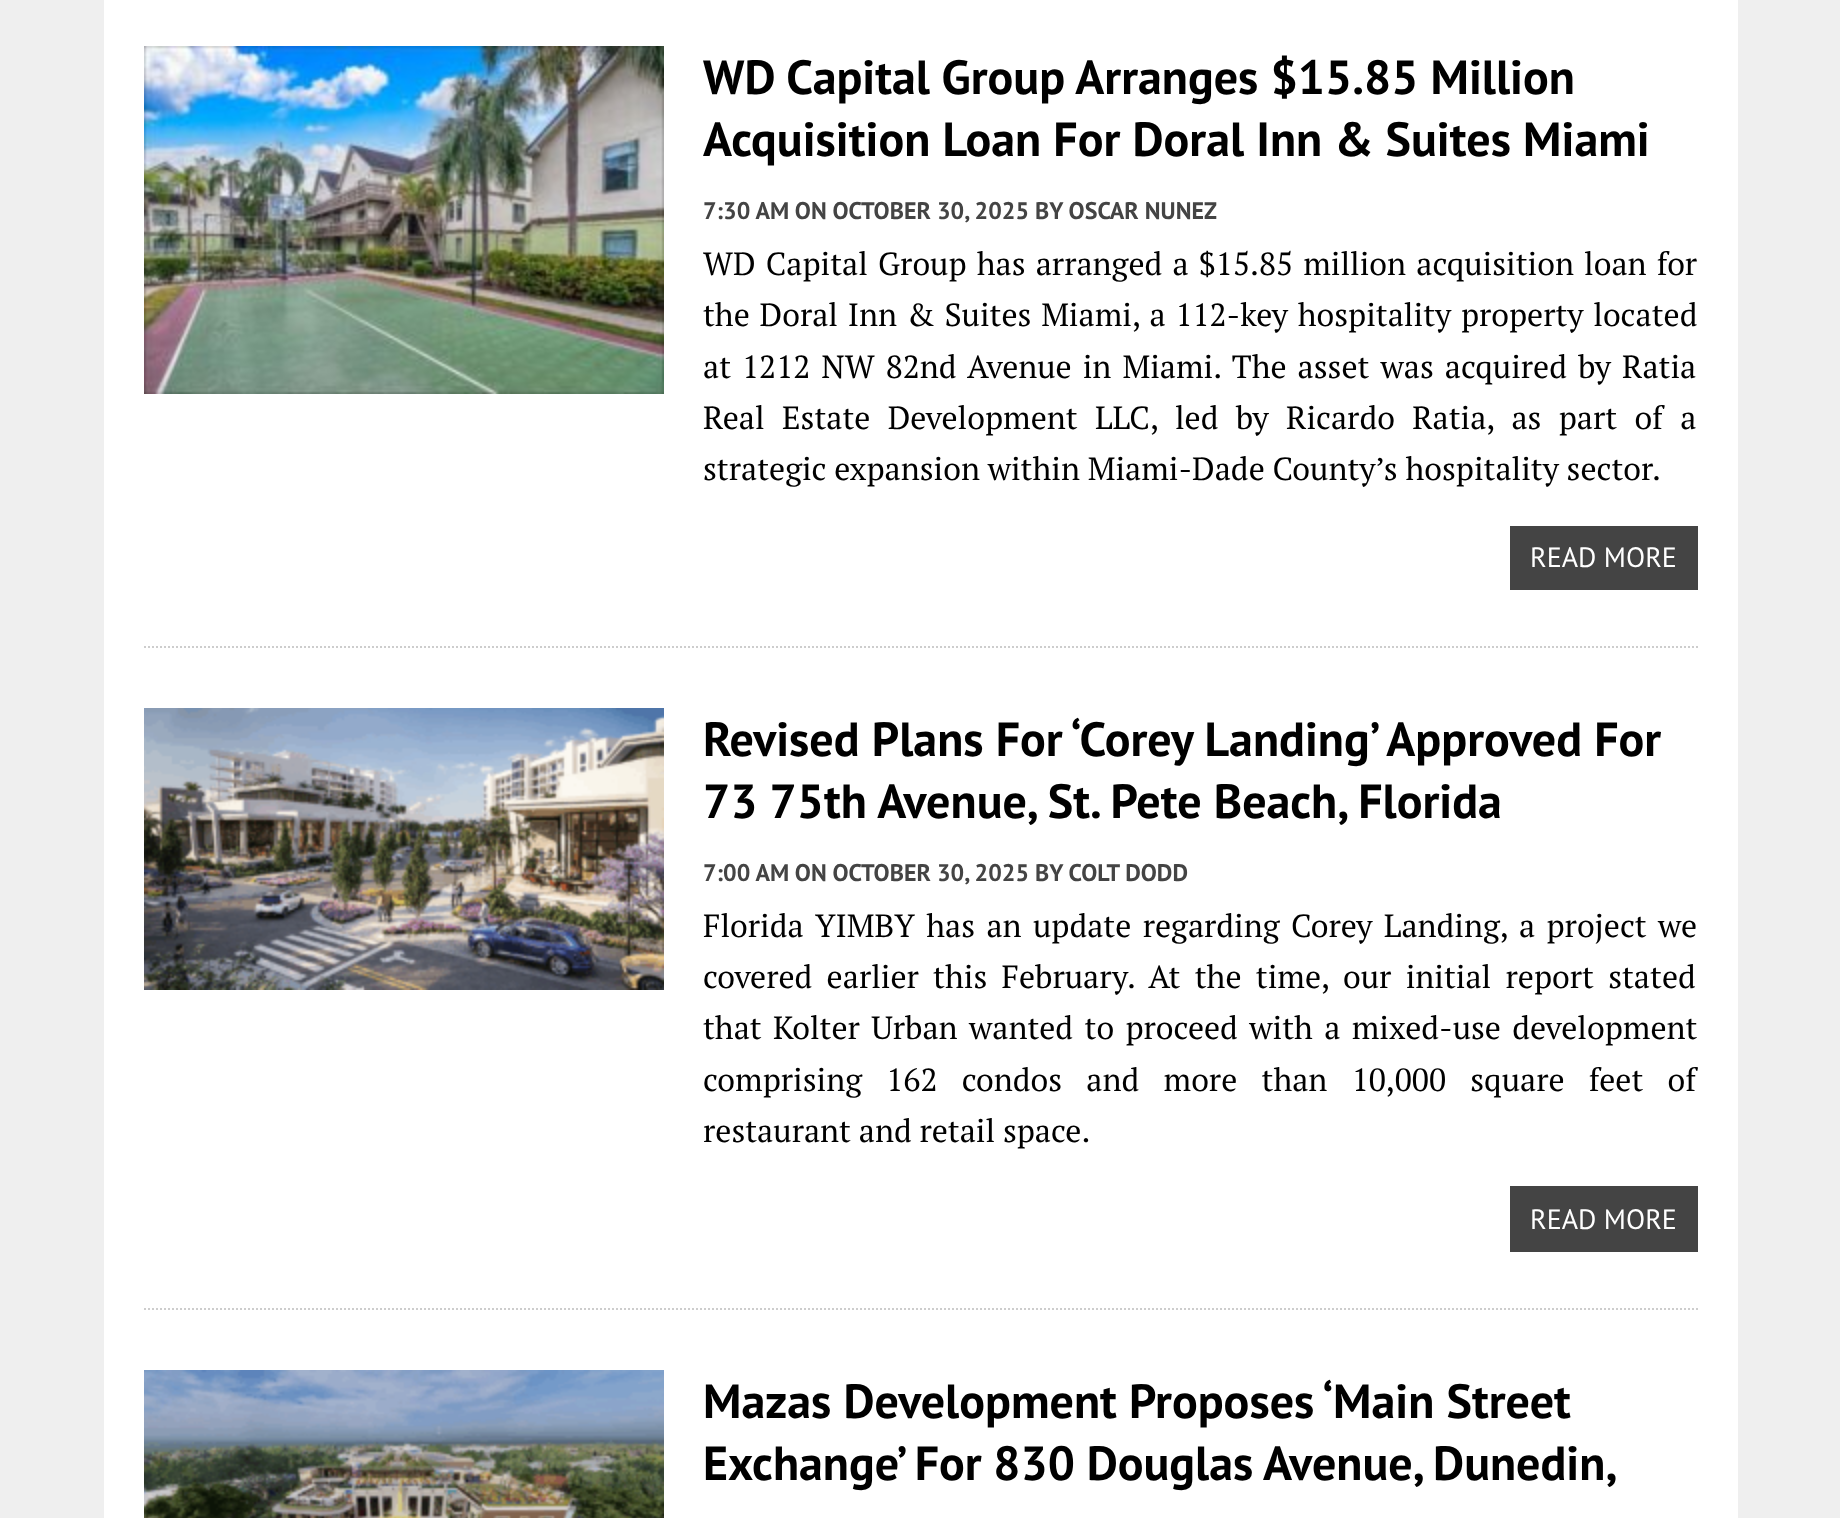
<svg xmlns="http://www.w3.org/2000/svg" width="1840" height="1518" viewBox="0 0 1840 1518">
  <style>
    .t1 { font: bold 48px PT Sans; fill: #000; }
    .t2 { font: bold 24px PT Sans; fill: #444; }
    .t3 { font: 32px PT Serif; fill: #000; }
    .t4 { font: 28px PT Sans; fill: #fff; }
  </style>
  <defs>
    <clipPath id="clip1"><rect x="704" y="900" width="994" height="256"/></clipPath>
  </defs>
  <rect width="100%" height="100%" fill="#efefef"/>
  <rect x="104" y="0" width="1634" height="1518" fill="#fff"/>
  <image x="144" y="46" width="520" height="348" href="images/1.png"/>
  <text x="703" y="94" class="t1">WD Capital Group Arranges $15.85 Million</text>
  <text x="703" y="156" class="t1">Acquisition Loan For Doral Inn &amp; Suites Miami</text>
  <text x="703" y="219" class="t2">7:30 AM ON OCTOBER 30, 2025 BY OSCAR NUNEZ</text>
  <text x="703" y="275" word-spacing="2.4" class="t3">WD Capital Group has arranged a $15.85 million acquisition loan for</text>
  <text x="703" y="326" word-spacing="2" class="t3">the Doral Inn &amp; Suites Miami, a 112-key hospitality property located</text>
  <text x="703" y="378" word-spacing="3.25" class="t3">at 1212 NW 82nd Avenue in Miami. The asset was acquired by Ratia</text>
  <text x="703" y="429" word-spacing="9.5" class="t3">Real Estate Development LLC, led by Ricardo Ratia, as part of a</text>
  <text x="703" y="480" class="t3">strategic expansion within Miami-Dade County’s hospitality sector.</text>
  <rect x="1510" y="526" width="188" height="64" fill="#444"/>
  <text x="1530" y="567" class="t4">READ MORE</text>
  <path d="M144 647H1698" fill="none" stroke="#cdcdcd" stroke-width="2" stroke-dasharray="2 2"/>
  <image x="144" y="708" width="520" height="282" href="images/2.png"/>
  <text x="703" y="756" class="t1">Revised Plans For ‘Corey Landing’ Approved For</text>
  <text x="703" y="818" class="t1">73 75th Avenue, St. Pete Beach, Florida</text>
  <text x="703" y="881" class="t2">7:00 AM ON OCTOBER 30, 2025 BY COLT DODD</text>
  <text x="703" y="937" word-spacing="3.6" class="t3">Florida YIMBY has an update regarding Corey Landing, a project we</text>
  <text x="703" y="988" word-spacing="6.5" class="t3">covered earlier this February. At the time, our initial report stated</text>
  <text x="703" y="1039" word-spacing="3.6" class="t3">that Kolter Urban wanted to proceed with a mixed-use development</text>
  <g clip-path="url(#clip1)">
    <text x="703" y="1091" word-spacing="16.5" class="t3">comprising 162 condos and more than 10,000 square feet of</text>
  </g>
  <text x="703" y="1142" class="t3">restaurant and retail space.</text>
  <rect x="1510" y="1186" width="188" height="66" fill="#444"/>
  <text x="1530" y="1229" class="t4">READ MORE</text>
  <path d="M144 1309H1698" fill="none" stroke="#cdcdcd" stroke-width="2" stroke-dasharray="2 2"/>
  <image x="144" y="1370" width="520" height="148" href="images/3.png"/>
  <text x="703" y="1418" class="t1">Mazas Development Proposes ‘Main Street</text>
  <text x="703" y="1480" word-spacing="-0.5" class="t1">Exchange’ For 830 Douglas Avenue, Dunedin,</text>
</svg>
